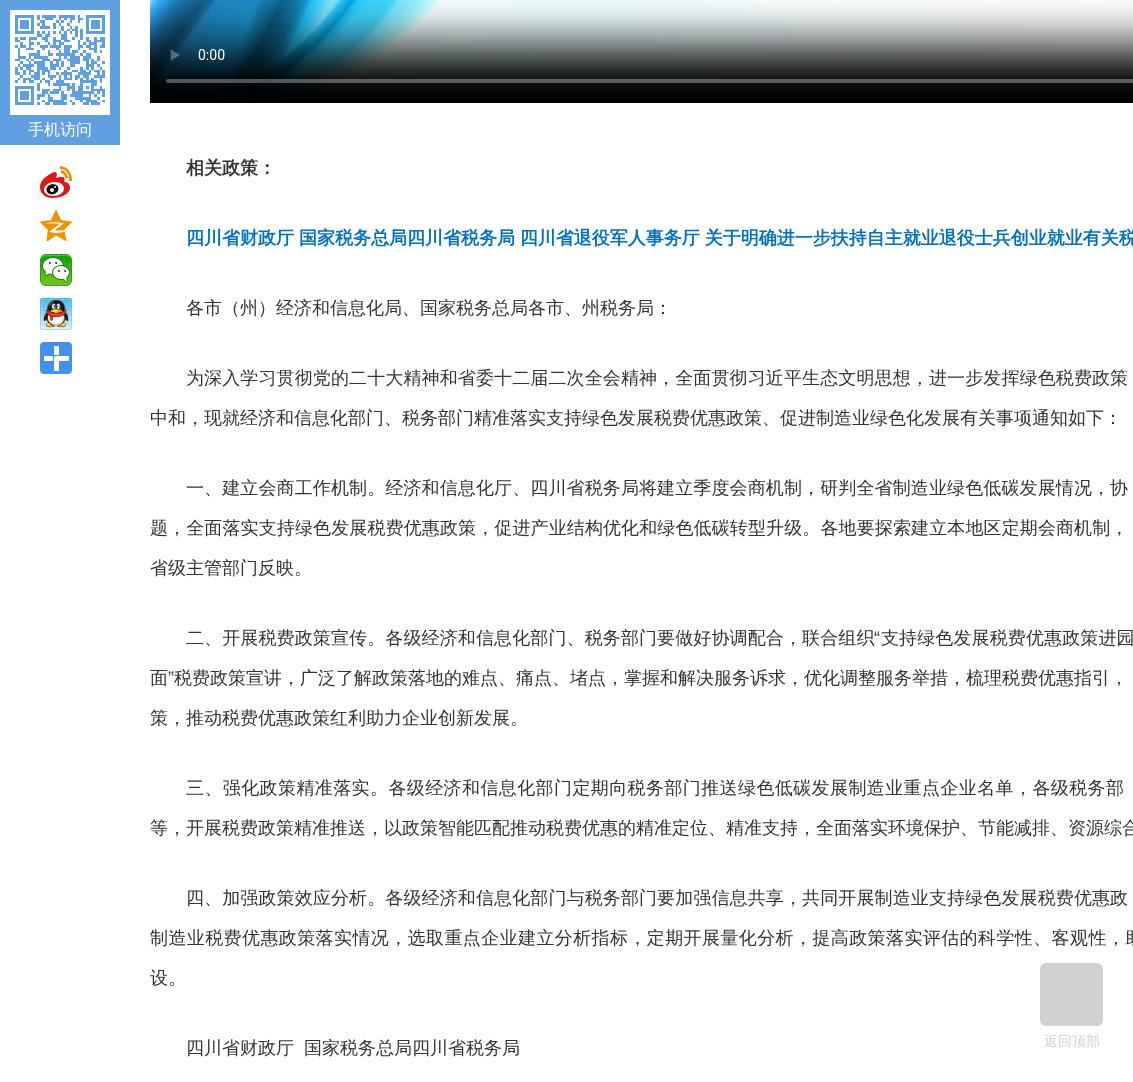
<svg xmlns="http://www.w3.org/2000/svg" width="1133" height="1082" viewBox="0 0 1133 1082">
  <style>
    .t1 { font: 500 16px WenQuanYi Zen Hei; fill: #fff; }
    .t2 { font: bold 18px WenQuanYi Zen Hei; fill: #333; }
    .t3 { font: bold 18px WenQuanYi Zen Hei; fill: #0070c0; }
    .t4 { font: 500 18px WenQuanYi Zen Hei; fill: #333; }
    .t5 { font: 500 18px WenQuanYi Zen Hei; letter-spacing: 0.12px; fill: #333; }
    .t6 { font: 18px Liberation Sans; letter-spacing: 0.12px; fill: #333; }
    .t7 { font: 18px Liberation Sans; fill: #333; }
    .t8 { font: 500 18px WenQuanYi Zen Hei; letter-spacing: 0.4px; fill: #333; }
    .t9 { font: 500 14px WenQuanYi Zen Hei; fill: #d1d1d1; }
  </style>
  <rect width="100%" height="100%" fill="#fff"/>
  <rect x="0" y="0" width="120" height="145" fill="#619fe3"/>
  <rect x="10" y="10" width="100" height="105" fill="#fff"/>
  <image x="15" y="15" width="90" height="90" href="images/1.png"/>
  <text x="28" y="135" class="t1">手机访问</text>
  <image x="40" y="166" width="32" height="32" href="images/2.png"/>
  <image x="40" y="210" width="32" height="31" href="images/3.png"/>
  <image x="40" y="254" width="32" height="32" href="images/4.png"/>
  <image x="40" y="298" width="32" height="32" href="images/5.png"/>
  <image x="40" y="342" width="32" height="32" href="images/6.png"/>
  <image x="150" y="0" width="983" height="103" href="images/7.png"/>
  <text x="186" y="174" class="t2">相关政策：</text>
  <text x="186" y="244" word-spacing="-0.5" class="t3">四川省财政厅 国家税务总局四川省税务局 四川省退役军人事务厅 关于明确进一步扶持自主就业退役士兵创业就业有关税</text>
  <text x="186" y="314" class="t4">各市（州）经济和信息化局、国家税务总局各市、州税务局：</text>
  <text x="186" y="384" class="t5">为深入学习贯彻党的二十大精神和省委十二届二次全会精神，全面贯彻习近平生态文明思想，进一步发挥绿色税费政策</text>
  <text x="150" y="424" class="t4">中和，现就经济和信息化部门、税务部门精准落实支持绿色发展税费优惠政策、促进制造业绿色化发展有关事项通知如下：</text>
  <text x="186" y="494" class="t5">一、建立会商工作机制。经济和信息化厅、四川省税务局将建立季度会商机制，研判全省制造业绿色低碳发展情况，协</text>
  <text x="150" y="534" class="t5">题，全面落实支持绿色发展税费优惠政策，促进产业结构优化和绿色低碳转型升级。各地要探索建立本地区定期会商机制，</text>
  <text x="150" y="574" class="t4">省级主管部门反映。</text>
  <text x="186" y="644" class="t5">二、开展税费政策宣传。各级经济和信息化部门、税务部门要做好协调配合，联合组织</text>
  <text x="874" y="644" class="t6">“</text>
  <text x="881" y="644" class="t5">支持绿色发展税费优惠政策进园</text>
  <text x="150" y="684" class="t4">面</text>
  <text x="168" y="684" class="t7">”</text>
  <text x="174" y="684" class="t4">税费政策宣讲，广泛了解政策落地的难点、痛点、堵点，掌握和解决服务诉求，优化调整服务举措，梳理税费优惠指引，</text>
  <text x="150" y="724" class="t4">策，推动税费优惠政策红利助力企业创新发展。</text>
  <text x="186" y="794" class="t8">三、强化政策精准落实。各级经济和信息化部门定期向税务部门推送绿色低碳发展制造业重点企业名单，各级税务部</text>
  <text x="150" y="834" class="t4">等，开展税费政策精准推送，以政策智能匹配推动税费优惠的精准定位、精准支持，全面落实环境保护、节能减排、资源综合</text>
  <text x="186" y="904" class="t5">四、加强政策效应分析。各级经济和信息化部门与税务部门要加强信息共享，共同开展制造业支持绿色发展税费优惠政</text>
  <text x="150" y="944" class="t8">制造业税费优惠政策落实情况，选取重点企业建立分析指标，定期开展量化分析，提高政策落实评估的科学性、客观性，助</text>
  <text x="150" y="984" class="t4">设。</text>
  <text x="186" y="1054" class="t4">四川省财政厅</text>
  <text x="304" y="1054" class="t4">国家税务总局四川省税务局</text>
  <rect x="1040" y="963" width="63" height="63" rx="6" fill="#d1d1d1"/>
  <text x="1044" y="1046" class="t9">返回顶部</text>
</svg>
